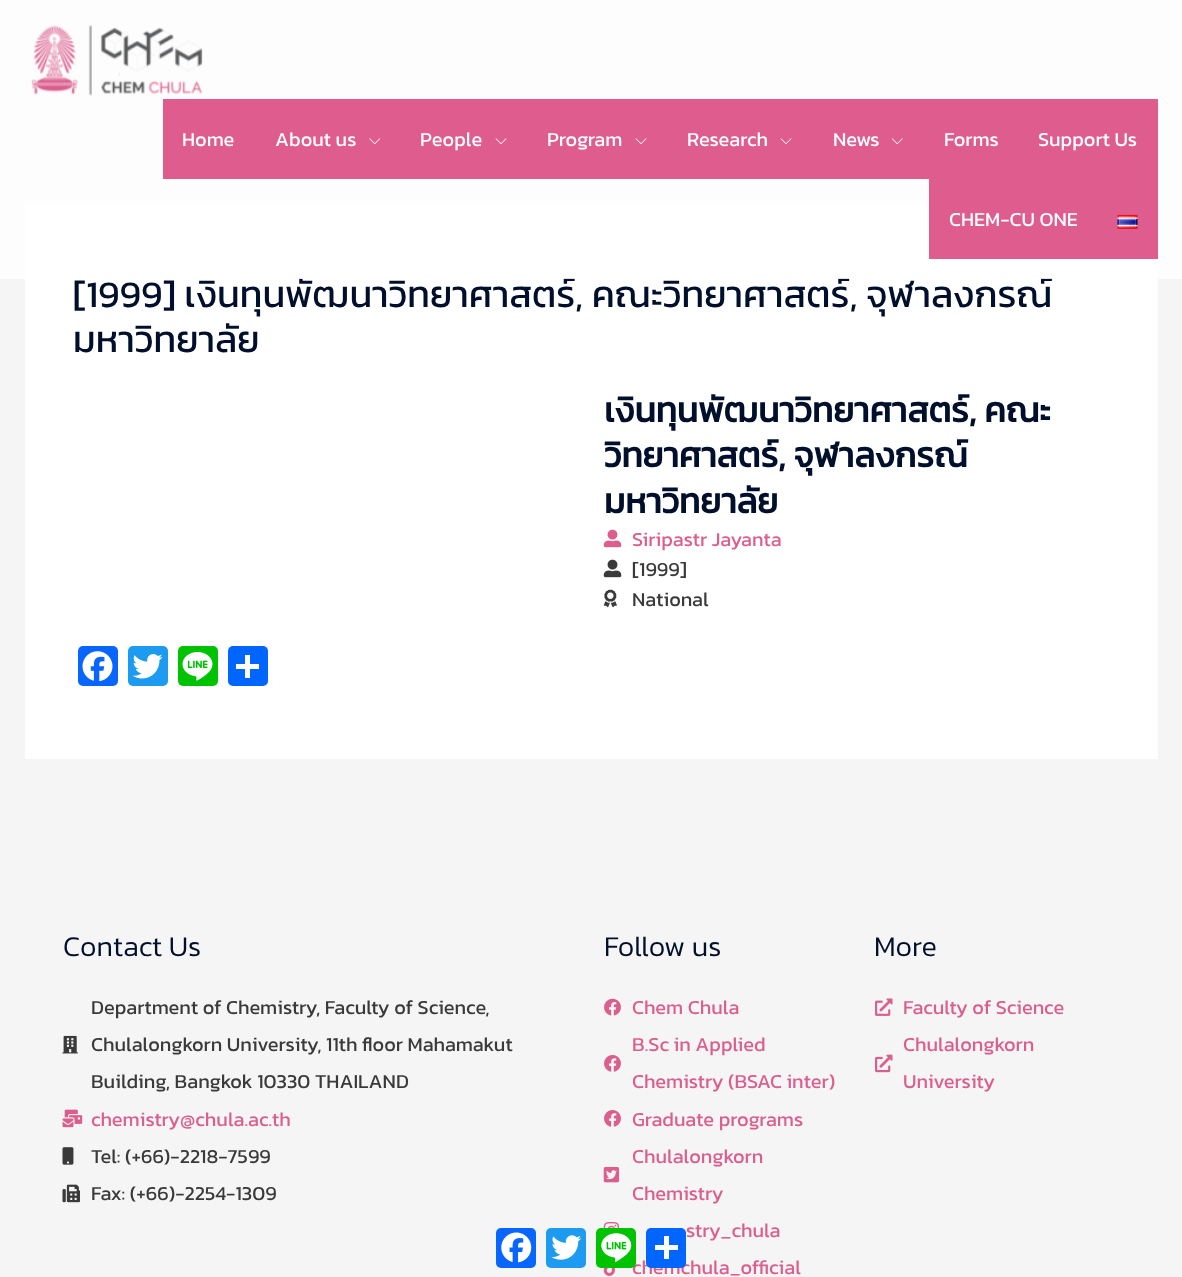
<svg xmlns="http://www.w3.org/2000/svg" width="1182" height="1277" viewBox="0 0 1182 1277">
  <style>
    .t1 { font: 37.5px Kanit; fill: #000f2b; }
    .t2 { font: 20px Kanit; fill: #fff; }
    .t3 { font: bold 35px Kanit; fill: #000f2b; }
    .t4 { font: 20px Kanit; fill: #db5f8e; }
    .t5 { font: 20px Kanit; fill: #3a3a3a; }
    .t6 { font: 300 28.75px Kanit; fill: #000f2b; }
  </style>
  <rect width="100%" height="100%" fill="#f5f5f5"/>
  <rect x="25" y="205" width="1133" height="554" fill="#fff"/>
  <text x="73" y="307" class="t1">[1999] เงินทุนพัฒนาวิทยาศาสตร์, คณะวิทยาศาสตร์, จุฬาลงกรณ์</text>
  <rect x="0" y="0" width="1182" height="279" fill="#ffffffd1"/>
  <image x="31" y="25" width="172" height="71" href="images/1.png"/>
  <rect x="163" y="99" width="995" height="80" fill="#de5c8e"/>
  <text x="182" y="146" class="t2">Home</text>
  <text x="275" y="146" class="t2">About us</text>
  <image x="369" y="138" width="12" height="7" href="images/2.png"/>
  <text x="420" y="146" class="t2">People</text>
  <image x="495" y="138" width="12" height="7" href="images/3.png"/>
  <text x="547" y="146" class="t2">Program</text>
  <image x="635" y="138" width="12" height="7" href="images/3.png"/>
  <text x="687" y="146" class="t2">Research</text>
  <image x="780" y="138" width="12" height="7" href="images/3.png"/>
  <text x="833" y="146" class="t2">News</text>
  <image x="891" y="138" width="12" height="7" href="images/4.png"/>
  <text x="944" y="146" class="t2">Forms</text>
  <text x="1038" y="146" class="t2">Support Us</text>
  <rect x="929" y="179" width="229" height="80" fill="#de5c8e"/>
  <text x="949" y="226" class="t2">CHEM-CU ONE</text>
  <image x="1117" y="214" width="21" height="15" href="images/5.png"/>
  <text x="73" y="352" class="t1">มหาวิทยาลัย</text>
  <text x="604" y="422" class="t3">เงินทุนพัฒนาวิทยาศาสตร์, คณะ</text>
  <text x="604" y="467" class="t3">วิทยาศาสตร์, จุฬาลงกรณ์</text>
  <text x="604" y="513" class="t3">มหาวิทยาลัย</text>
  <image x="603" y="529" width="19" height="19" href="images/6.png"/>
  <text x="632" y="546" class="t4">Siripastr Jayanta</text>
  <image x="603" y="559" width="19" height="19" href="images/7.png"/>
  <text x="632" y="576" class="t5">[1999]</text>
  <image x="603" y="589" width="14" height="19" href="images/8.png"/>
  <text x="632" y="606" class="t5">National</text>
  <rect x="78" y="646" width="40" height="40" rx="5" fill="#0866ff"/>
  <image x="82" y="651" width="31" height="31" href="images/9.png"/>
  <rect x="128" y="646" width="40" height="40" rx="5" fill="#1d9bf0"/>
  <image x="132" y="654" width="31" height="25" href="images/10.png"/>
  <rect x="178" y="646" width="40" height="40" rx="5" fill="#00c300"/>
  <image x="182" y="652" width="31" height="29" href="images/11.png"/>
  <rect x="228" y="646" width="40" height="40" rx="5" fill="#0166ff"/>
  <rect x="245" y="655" width="5" height="23" fill="#fff"/>
  <rect x="236" y="664" width="23" height="5" fill="#fff"/>
  <text x="63" y="956" class="t6">Contact Us</text>
  <image x="62" y="1035" width="16" height="19" href="images/12.png"/>
  <text x="91" y="1014" class="t5">Department of Chemistry, Faculty of Science,</text>
  <text x="91" y="1051" class="t5">Chulalongkorn University, 11th floor Mahamakut</text>
  <text x="91" y="1088" class="t5">Building, Bangkok 10330 THAILAND</text>
  <image x="62" y="1109" width="21" height="19" href="images/13.png"/>
  <text x="91" y="1126" class="t4">chemistry@chula.ac.th</text>
  <image x="62" y="1147" width="12" height="18" href="images/14.png"/>
  <text x="91" y="1163" class="t5">Tel: (+66)-2218-7599</text>
  <image x="62" y="1184" width="18" height="19" href="images/15.png"/>
  <text x="91" y="1200" class="t5">Fax: (+66)-2254-1309</text>
  <text x="604" y="956" class="t6">Follow us</text>
  <image x="604" y="998" width="17" height="18" href="images/16.png"/>
  <text x="632" y="1014" class="t4">Chem Chula</text>
  <image x="604" y="1055" width="17" height="17" href="images/17.png"/>
  <text x="632" y="1051" class="t4">B.Sc in Applied</text>
  <text x="632" y="1088" class="t4">Chemistry (BSAC inter)</text>
  <image x="604" y="1110" width="17" height="17" href="images/17.png"/>
  <text x="632" y="1126" class="t4">Graduate programs</text>
  <image x="603" y="1167" width="17" height="16" href="images/18.png"/>
  <text x="632" y="1163" class="t4">Chulalongkorn</text>
  <text x="632" y="1200" class="t4">Chemistry</text>
  <image x="603" y="1222" width="17" height="6" href="images/19.png"/>
  <text x="686" y="1237" class="t4">stry_chula</text>
  <image x="603" y="1268" width="12" height="8" href="images/20.png"/>
  <text x="632" y="1274" class="t4">chemchula_official</text>
  <text x="874" y="956" class="t6">More</text>
  <image x="875" y="998" width="18" height="18" href="images/21.png"/>
  <text x="903" y="1014" class="t4">Faculty of Science</text>
  <image x="875" y="1054" width="18" height="19" href="images/22.png"/>
  <text x="903" y="1051" class="t4">Chulalongkorn</text>
  <text x="903" y="1088" class="t4">University</text>
  <rect x="496" y="1228" width="40" height="40" rx="5" fill="#0866ff"/>
  <image x="501" y="1232" width="31" height="31" href="images/23.png"/>
  <rect x="546" y="1228" width="40" height="40" rx="5" fill="#1d9bf0"/>
  <image x="551" y="1235" width="31" height="25" href="images/24.png"/>
  <rect x="596" y="1228" width="40" height="40" rx="5" fill="#00c300"/>
  <image x="601" y="1233" width="31" height="29" href="images/25.png"/>
  <rect x="646" y="1228" width="40" height="40" rx="5" fill="#0166ff"/>
  <rect x="664" y="1236" width="5" height="23" fill="#fff"/>
  <rect x="655" y="1245" width="23" height="5" fill="#fff"/>
</svg>
